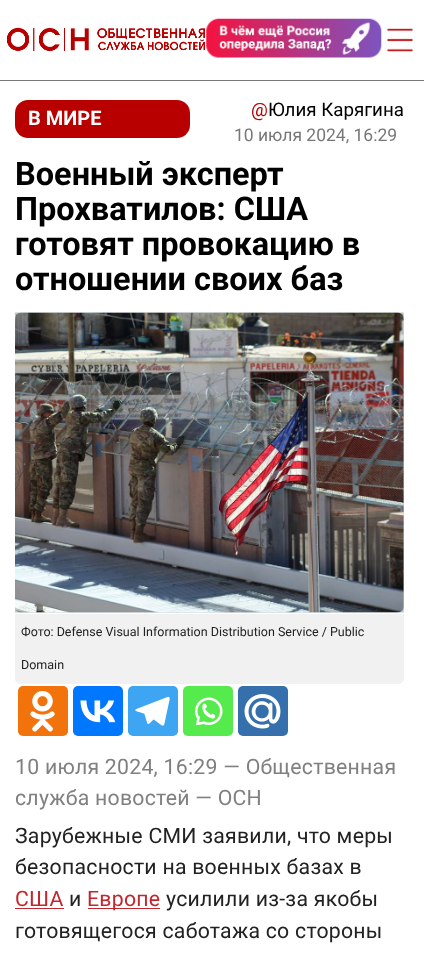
<svg xmlns="http://www.w3.org/2000/svg" width="424" height="961" viewBox="0 0 424 961">
  <style>
    .t1 { font: bold 20px Roboto; fill: #fff; }
    .t2 { font: 18.75px Roboto; fill: #b90000; }
    .t3 { font: 18.75px Roboto; fill: #000; }
    .t4 { font: 17.5px Roboto; fill: #777; }
    .t5 { font: bold 32.5px Roboto; fill: #000; }
    .t6 { font: 12.5px Roboto; fill: #222; }
    .t7 { font: 21.25px Roboto; letter-spacing: 0.25px; fill: #808080; }
    .t8 { font: 21.25px Roboto; letter-spacing: 0.25px; fill: #222; }
    .t9 { font: 21.25px Roboto; letter-spacing: 0.25px; fill: #c1272d; }
  </style>
  <rect width="100%" height="100%" fill="#fff"/>
  <rect x="0" y="80" width="424" height="1" fill="#777"/>
  <image x="7" y="27" width="198" height="25" href="images/1.png"/>
  <image x="206" y="18" width="176" height="40" href="images/2.png"/>
  <image x="387" y="28" width="26" height="24" href="images/3.png"/>
  <rect x="15" y="100" width="175" height="38" rx="13" fill="#b90000"/>
  <text x="28" y="125" class="t1">В МИРЕ</text>
  <text x="251" y="116" class="t2">@</text>
  <text x="268" y="116" class="t3">Юлия Карягина</text>
  <text x="234" y="141" class="t4">10 июля 2024, 16:29</text>
  <text x="15" y="185" class="t5">Военный эксперт</text>
  <text x="15" y="220" class="t5">Прохватилов: США</text>
  <text x="15" y="255" class="t5">готовят провокацию в</text>
  <text x="15" y="290" class="t5">отношении своих баз</text>
  <image x="15" y="312" width="389" height="301" href="images/4.png"/>
  <image x="15" y="312" width="389" height="301" href="images/5.png"/>
  <path d="M15 614H404V678C404 681.5 401.5 684 398 684H21C17.5 684 15 681.5 15 678Z" fill="#f1f1f1"/>
  <text x="21" y="636" class="t6">Фото: Defense Visual Information Distribution Service / Public</text>
  <text x="21" y="669" class="t6">Domain</text>
  <rect x="18" y="686" width="50" height="50" rx="5" fill="#f2720c"/>
  <image x="30" y="690" width="25" height="42" href="images/6.png"/>
  <rect x="73" y="686" width="50" height="50" rx="5" fill="#07f"/>
  <image x="80" y="700" width="36" height="23" href="images/7.png"/>
  <rect x="128" y="686" width="50" height="50" rx="5" fill="#3da5f1"/>
  <image x="135" y="696" width="35" height="30" href="images/8.png"/>
  <rect x="183" y="686" width="50" height="50" rx="5" fill="#55eb4c"/>
  <image x="195" y="697" width="28" height="29" href="images/9.png"/>
  <rect x="238" y="686" width="50" height="50" rx="5" fill="#356fac"/>
  <image x="244" y="694" width="37" height="35" href="images/10.png"/>
  <text x="15" y="774" class="t7">10 июля 2024, 16:29 — Общественная</text>
  <text x="15" y="805" class="t7">служба новостей — ОСН</text>
  <text x="15" y="843" class="t8">Зарубежные СМИ заявили, что меры</text>
  <text x="15" y="874" class="t8">безопасности на военных базах в</text>
  <text x="15" y="906" class="t9">США</text>
  <rect x="15" y="908" width="49" height="1" fill="#c1272d"/>
  <text x="69" y="906" class="t8">и</text>
  <rect x="88" y="908" width="72" height="1" fill="#c1272d"/>
  <text x="87" y="906" class="t9">Европе</text>
  <text x="166" y="906" class="t8">усилили из-за якобы</text>
  <text x="15" y="938" class="t8">готовящегося саботажа со стороны</text>
</svg>
